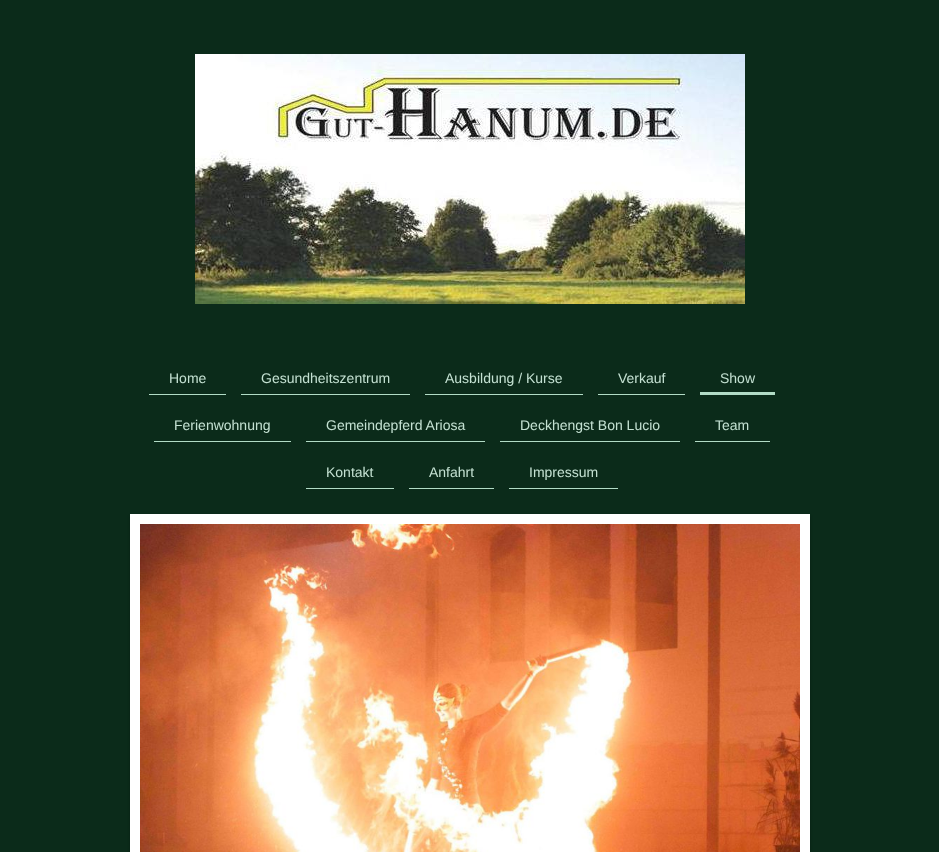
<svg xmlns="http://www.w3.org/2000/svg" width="939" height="852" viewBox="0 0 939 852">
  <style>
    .t1 { font: 14px Liberation Sans; fill: #c4e1d2; }
  </style>
  <rect width="100%" height="100%" fill="#0b2b1a"/>
  <image x="195" y="54" width="550" height="250" href="images/1.png"/>
  <text x="169" y="383" class="t1">Home</text>
  <rect x="149" y="394" width="77" height="1" fill="#b2dcc6"/>
  <text x="261" y="383" class="t1">Gesundheitszentrum</text>
  <rect x="241" y="394" width="169" height="1" fill="#b2dcc6"/>
  <text x="445" y="383" class="t1">Ausbildung / Kurse</text>
  <rect x="425" y="394" width="158" height="1" fill="#b2dcc6"/>
  <text x="618" y="383" class="t1">Verkauf</text>
  <rect x="598" y="394" width="87" height="1" fill="#b2dcc6"/>
  <text x="720" y="383" class="t1">Show</text>
  <rect x="700" y="392" width="75" height="3" fill="#b2dcc6"/>
  <text x="174" y="430" class="t1">Ferienwohnung</text>
  <rect x="154" y="441" width="137" height="1" fill="#b2dcc6"/>
  <text x="326" y="430" class="t1">Gemeindepferd Ariosa</text>
  <rect x="306" y="441" width="179" height="1" fill="#b2dcc6"/>
  <text x="520" y="430" class="t1">Deckhengst Bon Lucio</text>
  <rect x="500" y="441" width="180" height="1" fill="#b2dcc6"/>
  <text x="715" y="430" class="t1">Team</text>
  <rect x="695" y="441" width="75" height="1" fill="#b2dcc6"/>
  <text x="326" y="477" class="t1">Kontakt</text>
  <rect x="306" y="488" width="88" height="1" fill="#b2dcc6"/>
  <text x="429" y="477" class="t1">Anfahrt</text>
  <rect x="409" y="488" width="85" height="1" fill="#b2dcc6"/>
  <text x="529" y="477" class="t1">Impressum</text>
  <rect x="509" y="488" width="109" height="1" fill="#b2dcc6"/>
  <rect x="130" y="516" width="680" height="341" fill="#0000004d" filter="blur(1.5px)"/>
  <rect x="135" y="519" width="670" height="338" fill="none" stroke="#fff" stroke-width="10"/>
  <image x="140" y="524" width="660" height="328" href="images/2.png"/>
</svg>
